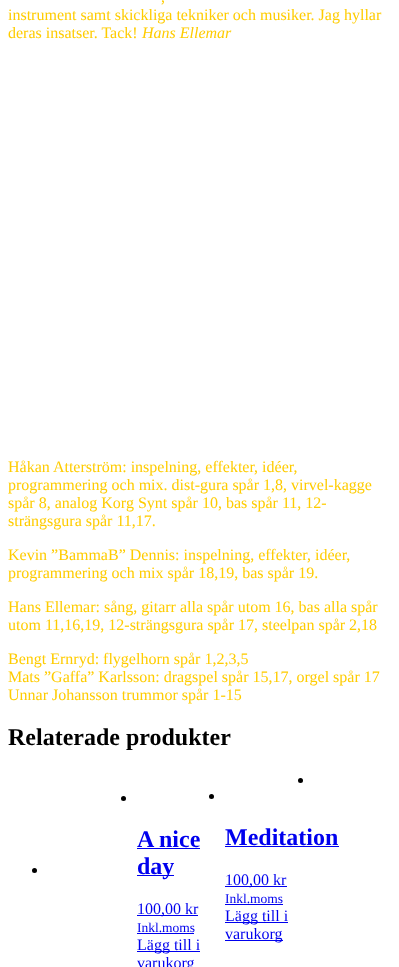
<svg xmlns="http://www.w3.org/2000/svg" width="399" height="967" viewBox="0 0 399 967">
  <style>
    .t1 { font: 16px Liberation Serif; fill: #fc0; }
    .t2 { font: italic 16px Liberation Serif; fill: #fc0; }
    .t3 { font: bold 24px Liberation Serif; fill: #000; }
    .t4 { font: bold 24px Liberation Serif; fill: #00e; }
    .t5 { font: 16px Liberation Serif; fill: #00e; }
    .t6 { font: 13.5px Liberation Serif; fill: #00e; }
  </style>
  <rect width="100%" height="100%" fill="#fff"/>
  <text x="161" y="2" class="t1">,</text>
  <text x="8" y="20" class="t1">instrument samt skickliga tekniker och musiker. Jag hyllar</text>
  <text x="8" y="38" class="t1">deras insatser. Tack!</text>
  <text x="142" y="38" class="t2">Hans Ellemar</text>
  <text x="8" y="472" class="t1">Håkan Atterström: inspelning, effekter, idéer,</text>
  <text x="8" y="490" class="t1">programmering och mix. dist-gura spår 1,8, virvel-kagge</text>
  <text x="8" y="508" class="t1">spår 8, analog Korg Synt spår 10, bas spår 11, 12-</text>
  <text x="8" y="526" class="t1">strängsgura spår 11,17.</text>
  <text x="8" y="560" class="t1">Kevin ”BammaB” Dennis: inspelning, effekter, idéer,</text>
  <text x="8" y="578" class="t1">programmering och mix spår 18,19, bas spår 19.</text>
  <text x="8" y="612" class="t1">Hans Ellemar: sång, gitarr alla spår utom 16, bas alla spår</text>
  <text x="8" y="630" class="t1">utom 11,16,19, 12-strängsgura spår 17, steelpan spår 2,18</text>
  <text x="8" y="664" class="t1">Bengt Ernryd: flygelhorn spår 1,2,3,5</text>
  <text x="8" y="682" class="t1">Mats ”Gaffa” Karlsson: dragspel spår 15,17, orgel spår 17</text>
  <text x="8" y="700" class="t1">Unnar Johansson trummor spår 1-15</text>
  <text x="8" y="745" class="t3">Relaterade produkter</text>
  <circle cx="300.5" cy="780.5" r="2.5" fill="#000"/>
  <circle cx="34.5" cy="870.5" r="2.5" fill="#000"/>
  <circle cx="123.5" cy="798.5" r="2.5" fill="#000"/>
  <text x="137" y="847" class="t4">A nice</text>
  <rect x="137" y="848" width="63" height="1" fill="#00e"/>
  <rect x="137" y="875" width="37" height="1" fill="#00e"/>
  <text x="137" y="874" class="t4">day</text>
  <rect x="137" y="915" width="61" height="1" fill="#00e"/>
  <text x="137" y="914" class="t5">100,00 kr</text>
  <text x="137" y="932" class="t6">Inkl.moms</text>
  <rect x="137" y="933" width="57" height="1" fill="#00e"/>
  <rect x="137" y="951" width="63" height="1" fill="#00e"/>
  <text x="137" y="950" class="t5">Lägg till i</text>
  <text x="137" y="968" class="t5">varukorg</text>
  <circle cx="211.5" cy="796.5" r="2.5" fill="#000"/>
  <text x="225" y="845" class="t4">Meditation</text>
  <rect x="225" y="846" width="114" height="1" fill="#00e"/>
  <rect x="225" y="886" width="62" height="1" fill="#00e"/>
  <text x="225" y="885" class="t5">100,00 kr</text>
  <text x="225" y="903" class="t6">Inkl.moms</text>
  <rect x="225" y="904" width="58" height="1" fill="#00e"/>
  <rect x="225" y="922" width="63" height="1" fill="#00e"/>
  <text x="225" y="921" class="t5">Lägg till i</text>
  <rect x="225" y="940" width="58" height="1" fill="#00e"/>
  <text x="225" y="939" class="t5">varukorg</text>
</svg>
